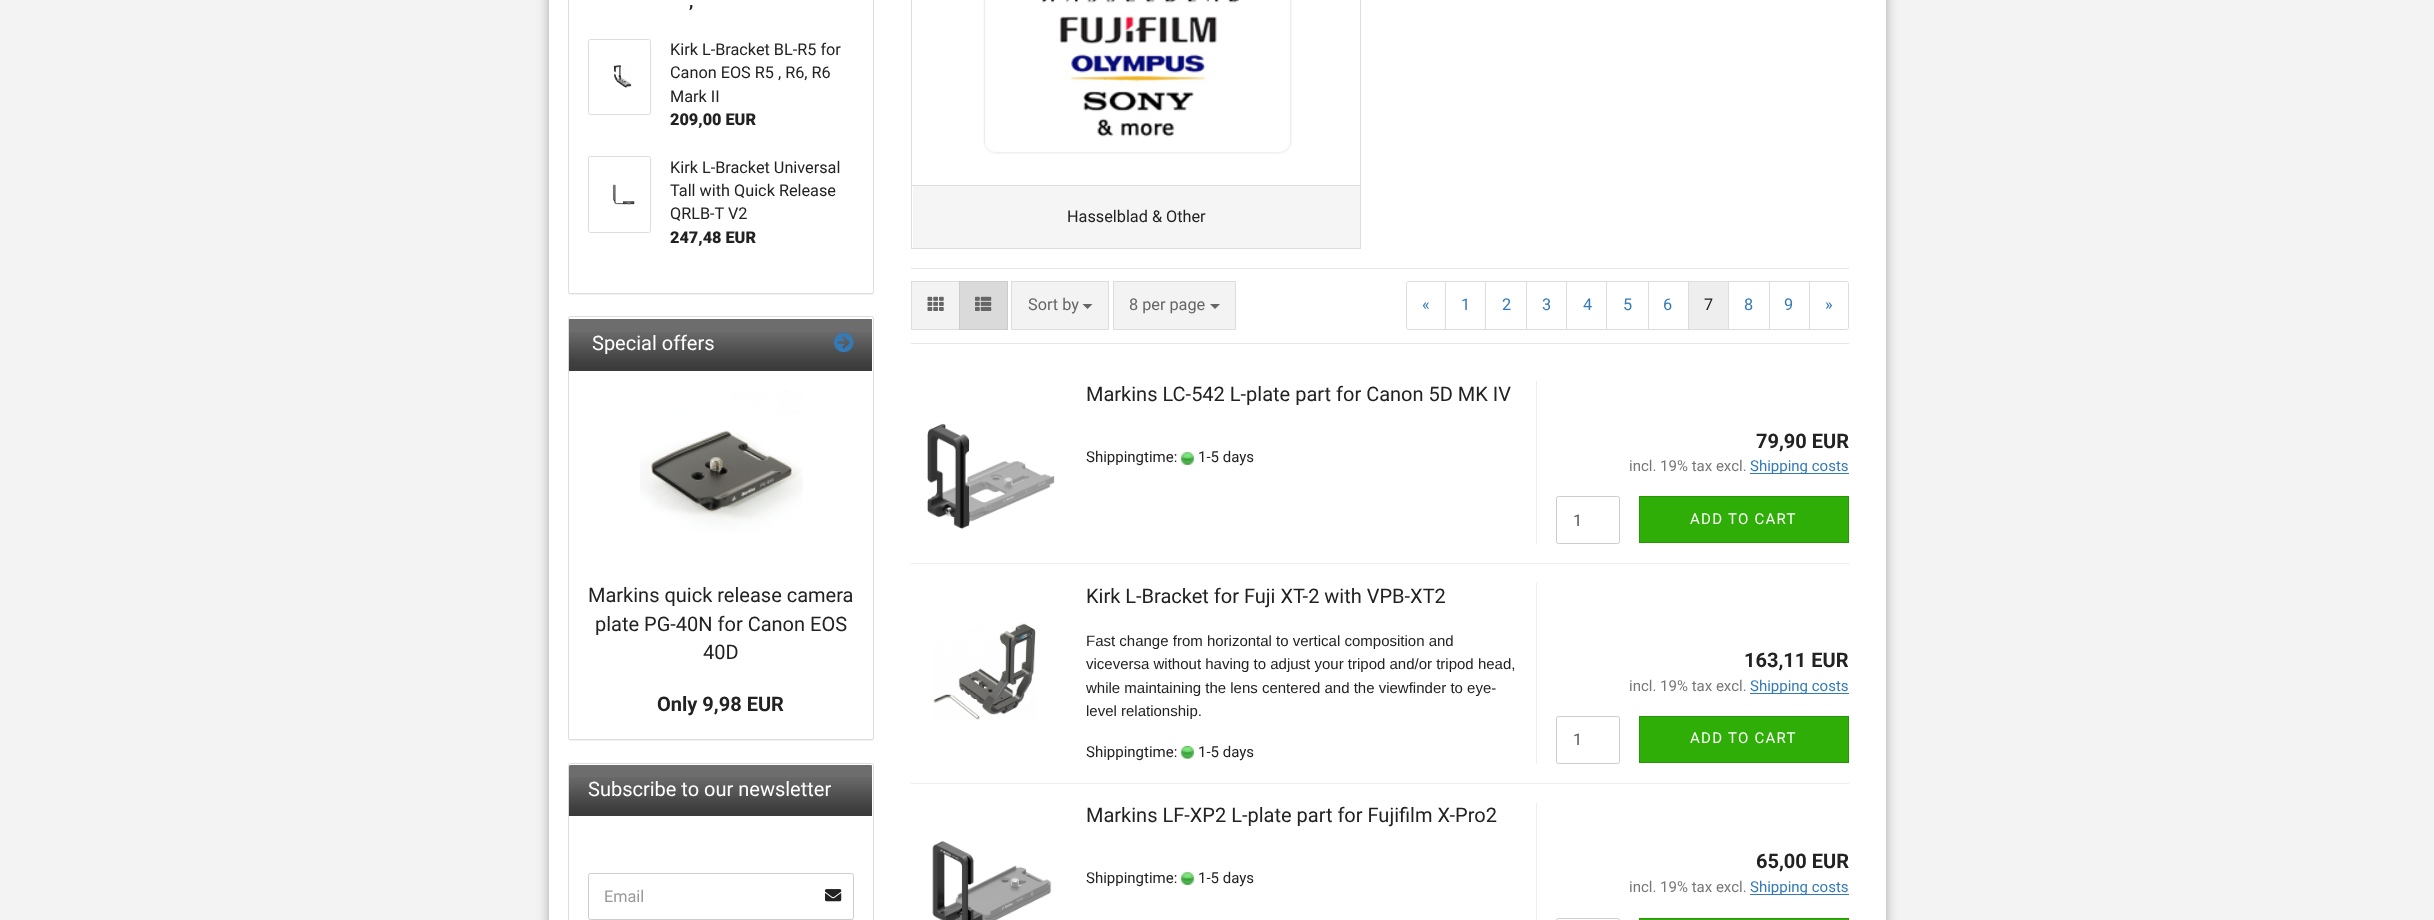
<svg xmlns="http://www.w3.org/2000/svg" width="2434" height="920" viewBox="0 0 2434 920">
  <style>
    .t1 { font: 900 16.25px Roboto; fill: #222; }
    .t2 { font: 16.25px Roboto; fill: #222; }
    .t3 { font: 20px Roboto; fill: #fff; }
    .t4 { font: 20px Roboto; fill: #222; }
    .t5 { font: bold 20px Roboto; fill: #222; }
    .t6 { font: 16.25px Roboto; fill: #999; }
    .t7 { font: 16.25px Roboto; fill: #666; }
    .t8 { font: 16.25px Roboto; fill: #337ab7; }
    .t9 { font: 15px Roboto; fill: #222; }
    .t10 { font: 15px Roboto; fill: #777; }
    .t11 { font: 15px Roboto; fill: #337ab7; }
    .t12 { font: 16.25px Roboto; fill: #555; }
    .t13 { font: 15px Roboto; letter-spacing: 1.25px; fill: #fff; }
    .t14 { font: 15px Liberation Sans; fill: #222; }
  </style>
  <rect width="100%" height="100%" fill="#f3f3f3"/>
  <rect x="549" y="-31" width="1337" height="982" rx="13" fill="#0000004d" filter="blur(6px)"/>
  <rect x="549" y="0" width="1337" height="920" fill="#fff"/>
  <rect x="568" y="-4" width="306" height="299" rx="2.5" fill="#0000000d" filter="blur(0.5px)"/>
  <rect x="568.5" y="-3.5" width="305" height="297" rx="2" fill="#fff" stroke="#ddd"/>
  <text x="689" y="7" class="t1">,</text>
  <rect x="588.5" y="39.5" width="62" height="75" rx="2" fill="none" stroke="#ddd"/>
  <image x="614" y="65" width="18" height="23" href="images/1.png"/>
  <text x="670" y="55" class="t2">Kirk L-Bracket BL-R5 for</text>
  <text x="670" y="78" class="t2">Canon EOS R5 , R6, R6</text>
  <text x="670" y="102" class="t2">Mark II</text>
  <text x="670" y="125" class="t1">209,00 EUR</text>
  <rect x="588.5" y="156.5" width="62" height="76" rx="2" fill="none" stroke="#ddd"/>
  <image x="612" y="184" width="23" height="21" href="images/2.png"/>
  <text x="670" y="173" class="t2">Kirk L-Bracket Universal</text>
  <text x="670" y="196" class="t2">Tall with Quick Release</text>
  <text x="670" y="219" class="t2">QRLB-T V2</text>
  <text x="670" y="243" class="t1">247,48 EUR</text>
  <rect x="568" y="318" width="306" height="423" rx="2.5" fill="#0000000d" filter="blur(0.5px)"/>
  <rect x="568.5" y="316.5" width="305" height="423" rx="2" fill="#fff" stroke="#ddd"/>
  <path d="M570 318H872C872.5 318 873 318.5 873 319V371H569V319C569 318.5 569.5 318 570 318Z" fill="#6d6d6d"/>
  <image x="568" y="332" width="304" height="39" href="images/3.png"/>
  <path d="M570 319H871C872 319 872 319 872 320V371H873V319C873 318 873 318 872 318H570C569 318 569 318 569 319V320C569 319 569 319 570 319Z" fill="#fff"/>
  <text x="592" y="350" class="t3">Special offers</text>
  <image x="834" y="332" width="20" height="21" href="images/4.png"/>
  <image x="640" y="390" width="163" height="142" href="images/5.png"/>
  <text x="588" y="602" class="t4">Markins quick release camera</text>
  <text x="595" y="631" class="t4">plate PG-40N for Canon EOS</text>
  <text x="703" y="659" class="t4">40D</text>
  <text x="657" y="711" class="t5">Only 9,98 EUR</text>
  <rect x="568.5" y="763.5" width="305" height="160" rx="2" fill="none" stroke="#ddd"/>
  <path d="M570 764H872C872.5 764 873 764.5 873 765V816H569V765C569 764.5 569.5 764 570 764Z" fill="#6d6d6d"/>
  <image x="568" y="777" width="304" height="39" href="images/3.png"/>
  <path d="M570 765H871C872 765 872 766 872 766V816H873V765C873 764 873 764 872 764H570C569 764 569 764 569 765V766Z" fill="#fff"/>
  <text x="588" y="796" class="t3">Subscribe to our newsletter</text>
  <rect x="588.5" y="873.5" width="265" height="46" rx="2" fill="none" stroke="#ccc"/>
  <text x="604" y="902" class="t6">Email</text>
  <image x="825" y="889" width="17" height="13" href="images/6.png"/>
  <rect x="911.5" y="-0.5" width="449" height="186" fill="none" stroke="#ddd"/>
  <image x="983" y="0" width="309" height="154" href="images/7.png"/>
  <rect x="913" y="186" width="447" height="62" fill="#f5f5f5"/>
  <rect x="1360" y="186" width="1" height="63" fill="#ddd"/>
  <rect x="911" y="248" width="450" height="1" fill="#ddd"/>
  <rect x="911" y="186" width="1" height="63" fill="#ddd"/>
  <text x="1067" y="222" class="t2">Hasselblad &amp; Other</text>
  <rect x="911" y="268" width="938" height="1" fill="#e7e7e7"/>
  <rect x="911" y="343" width="938" height="1" fill="#e7e7e7"/>
  <rect x="911.5" y="281.5" width="48" height="48" fill="#f3f3f3" stroke="#ddd"/>
  <image x="927" y="296" width="17" height="15" href="images/8.png"/>
  <rect x="959.5" y="281.5" width="48" height="48" fill="#dadada" stroke="#ccc"/>
  <image x="975" y="296" width="17" height="15" href="images/9.png"/>
  <rect x="1011.5" y="281.5" width="97" height="48" fill="#f3f3f3" stroke="#ddd"/>
  <text x="1028" y="310" class="t7">Sort by</text>
  <path d="M1082.5 304H1092.5L1087.5 309Z" fill="#666"/>
  <rect x="1113.5" y="281.5" width="122" height="48" fill="#f3f3f3" stroke="#ddd"/>
  <text x="1129" y="310" class="t7">8 per page</text>
  <path d="M1210 304H1220L1215 309Z" fill="#666"/>
  <path d="M1408.5 281.5H1445.5V329.5H1408.5C1407.5 329.5 1406.5 328.5 1406.5 327.5V283.5C1406.5 282.5 1407.5 281.5 1408.5 281.5Z" fill="none" stroke="#ddd"/>
  <text x="1422" y="310" class="t8">«</text>
  <rect x="1445.5" y="281.5" width="40" height="48" fill="none" stroke="#ddd"/>
  <text x="1461" y="310" class="t8">1</text>
  <rect x="1485.5" y="281.5" width="42" height="48" fill="none" stroke="#ddd"/>
  <text x="1502" y="310" class="t8">2</text>
  <rect x="1527" y="282" width="1" height="47" fill="#fff"/>
  <rect x="1526.5" y="281.5" width="41" height="48" fill="none" stroke="#ddd"/>
  <text x="1542" y="310" class="t8">3</text>
  <rect x="1567" y="282" width="1" height="47" fill="#fff"/>
  <rect x="1566.5" y="281.5" width="41" height="48" fill="none" stroke="#ddd"/>
  <text x="1583" y="310" class="t8">4</text>
  <rect x="1607" y="282" width="1" height="47" fill="#fff"/>
  <rect x="1606.5" y="281.5" width="42" height="48" fill="none" stroke="#ddd"/>
  <text x="1623" y="310" class="t8">5</text>
  <rect x="1648.5" y="281.5" width="40" height="48" fill="none" stroke="#ddd"/>
  <text x="1663" y="310" class="t8">6</text>
  <rect x="1688.5" y="281.5" width="40" height="48" fill="#eee" stroke="#ddd"/>
  <text x="1704" y="310" class="t2">7</text>
  <rect x="1728.5" y="281.5" width="41" height="48" fill="none" stroke="#ddd"/>
  <text x="1744" y="310" class="t8">8</text>
  <rect x="1769.5" y="281.5" width="40" height="48" fill="none" stroke="#ddd"/>
  <text x="1784" y="310" class="t8">9</text>
  <path d="M1809.5 281.5H1846.5C1847.5 281.5 1848.5 282.5 1848.5 283.5V327.5C1848.5 328.5 1847.5 329.5 1846.5 329.5H1809.5Z" fill="#fff" stroke="#ddd"/>
  <text x="1825" y="310" class="t8">»</text>
  <rect x="911" y="563" width="938" height="1" fill="#eee"/>
  <image x="927" y="423" width="128" height="106" href="images/10.png"/>
  <text x="1086" y="401" class="t4">Markins LC-542 L-plate part for Canon 5D MK IV</text>
  <text x="1086" y="462" class="t9">Shippingtime:</text>
  <image x="1181" y="452" width="13" height="13" href="images/11.png"/>
  <text x="1198" y="462" class="t9">1-5 days</text>
  <rect x="1536" y="381" width="1" height="163" fill="#eee"/>
  <text x="1756" y="448" class="t5">79,90 EUR</text>
  <text x="1629" y="471" class="t10">incl. 19% tax excl.</text>
  <rect x="1750" y="473" width="99" height="1" fill="#337ab7"/>
  <text x="1750" y="471" class="t11">Shipping costs</text>
  <rect x="1556.5" y="496.5" width="63" height="47" rx="2" fill="none" stroke="#ccc"/>
  <text x="1573" y="526" class="t12">1</text>
  <rect x="1639.5" y="496.5" width="209" height="46" fill="#2eae06" stroke="#279505"/>
  <text x="1690" y="524" class="t13">ADD TO CART</text>
  <rect x="911" y="783" width="938" height="1" fill="#eee"/>
  <image x="933" y="623" width="103" height="97" href="images/12.png"/>
  <text x="1086" y="603" class="t4">Kirk L-Bracket for Fuji XT-2 with VPB-XT2</text>
  <text x="1086" y="646" class="t14">Fast change from horizontal to vertical composition and</text>
  <text x="1086" y="669" class="t14">viceversa without having to adjust your tripod and/or tripod head,</text>
  <text x="1086" y="693" class="t14">while maintaining the lens centered and the viewfinder to eye-</text>
  <text x="1086" y="716" class="t14">level relationship.</text>
  <text x="1086" y="757" class="t9">Shippingtime:</text>
  <image x="1181" y="746" width="13" height="13" href="images/13.png"/>
  <text x="1198" y="757" class="t9">1-5 days</text>
  <rect x="1536" y="583" width="1" height="181" fill="#eee"/>
  <text x="1744" y="667" class="t5">163,11 EUR</text>
  <text x="1629" y="691" class="t10">incl. 19% tax excl.</text>
  <rect x="1750" y="693" width="99" height="1" fill="#337ab7"/>
  <text x="1750" y="691" class="t11">Shipping costs</text>
  <rect x="1556.5" y="716.5" width="63" height="47" rx="2" fill="none" stroke="#ccc"/>
  <text x="1573" y="745" class="t12">1</text>
  <rect x="1639.5" y="716.5" width="209" height="46" fill="#2eae06" stroke="#279505"/>
  <text x="1690" y="743" class="t13">ADD TO CART</text>
  <image x="932" y="841" width="120" height="79" href="images/14.png"/>
  <text x="1086" y="822" class="t4">Markins LF-XP2 L-plate part for Fujifilm X-Pro2</text>
  <text x="1086" y="883" class="t9">Shippingtime:</text>
  <image x="1181" y="872" width="13" height="13" href="images/11.png"/>
  <text x="1198" y="883" class="t9">1-5 days</text>
  <rect x="1536" y="803" width="1" height="117" fill="#eee"/>
  <text x="1756" y="868" class="t5">65,00 EUR</text>
  <text x="1629" y="892" class="t10">incl. 19% tax excl.</text>
  <rect x="1750" y="894" width="99" height="1" fill="#337ab7"/>
  <text x="1750" y="892" class="t11">Shipping costs</text>
  <rect x="1556.5" y="918.5" width="63" height="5" rx="2" fill="none" stroke="#ccc"/>
  <rect x="1639.5" y="918.5" width="209" height="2" fill="#2eae06" stroke="#279505"/>
</svg>
